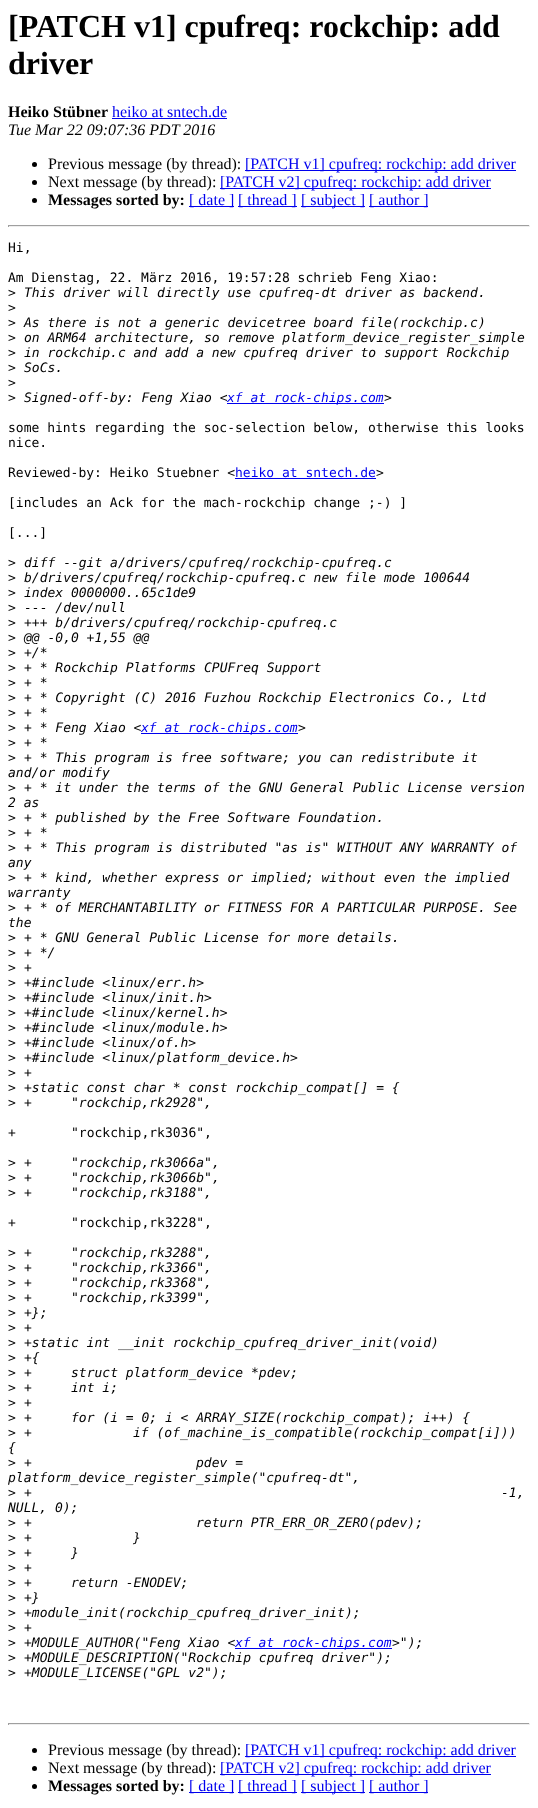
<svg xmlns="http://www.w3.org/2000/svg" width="538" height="1808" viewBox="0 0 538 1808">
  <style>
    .t1 { font: bold 32px Liberation Serif; fill: #000; }
    .t2 { font: bold 16px Liberation Serif; fill: #000; }
    .t3 { font: 16px Liberation Serif; fill: #00e; }
    .t4 { font: italic 16px Liberation Serif; fill: #000; }
    .t5 { font: 16px Liberation Serif; fill: #000; }
    .t6 { font: 13px DejaVu Sans Mono; fill: #000; }
    .t7 { font: italic 13px DejaVu Sans Mono; fill: #000; }
    .t8 { font: italic 13px DejaVu Sans Mono; fill: #00e; }
    .t9 { font: 13px DejaVu Sans Mono; fill: #00e; }
  </style>
  <rect width="100%" height="100%" fill="#fff"/>
  <text x="8" y="37" class="t1">[PATCH v1] cpufreq: rockchip: add</text>
  <text x="8" y="74" class="t1">driver</text>
  <text x="8" y="117" class="t2">Heiko Stübner</text>
  <text x="112" y="117" class="t3">heiko at sntech.de</text>
  <rect x="112" y="118" width="115" height="1" fill="#00e"/>
  <text x="8" y="135" class="t4">Tue Mar 22 09:07:36 PDT 2016</text>
  <circle cx="34.5" cy="164.5" r="2.5" fill="#000"/>
  <text x="48" y="169" class="t5">Previous message (by thread):</text>
  <rect x="245" y="170" width="271" height="1" fill="#00e"/>
  <text x="245" y="169" class="t3">[PATCH v1] cpufreq: rockchip: add driver</text>
  <circle cx="34.5" cy="182.5" r="2.5" fill="#000"/>
  <text x="48" y="187" class="t5">Next message (by thread):</text>
  <rect x="220" y="188" width="271" height="1" fill="#00e"/>
  <text x="220" y="187" class="t3">[PATCH v2] cpufreq: rockchip: add driver</text>
  <circle cx="34.5" cy="200.5" r="2.5" fill="#000"/>
  <text x="48" y="205" class="t2">Messages sorted by:</text>
  <rect x="189" y="206" width="45" height="1" fill="#00e"/>
  <text x="189" y="205" class="t3">[ date ]</text>
  <rect x="238" y="206" width="59" height="1" fill="#00e"/>
  <text x="238" y="205" class="t3">[ thread ]</text>
  <rect x="301" y="206" width="64" height="1" fill="#00e"/>
  <text x="301" y="205" class="t3">[ subject ]</text>
  <rect x="369" y="206" width="59" height="1" fill="#00e"/>
  <text x="369" y="205" class="t3">[ author ]</text>
  <rect x="8" y="225" width="522" height="1" fill="#9f9f9f"/>
  <rect x="529" y="225" width="1" height="2" fill="#eee"/>
  <rect x="8" y="226" width="522" height="1" fill="#eee"/>
  <rect x="8" y="225" width="1" height="2" fill="#9f9f9f"/>
  <text x="8" y="252" class="t6">Hi,</text>
  <text x="8" y="282" class="t6">Am Dienstag, 22. März 2016, 19:57:28 schrieb Feng Xiao:</text>
  <text x="8" y="297" class="t6">&gt;</text>
  <text x="24" y="297" class="t7">This driver will directly use cpufreq-dt driver as backend.</text>
  <text x="8" y="312" class="t6">&gt;</text>
  <text x="8" y="327" class="t6">&gt;</text>
  <text x="24" y="327" class="t7">As there is not a generic devicetree board file(rockchip.c)</text>
  <text x="8" y="342" class="t6">&gt;</text>
  <text x="24" y="342" class="t7">on ARM64 architecture, so remove platform_device_register_simple</text>
  <text x="8" y="357" class="t6">&gt;</text>
  <text x="24" y="357" class="t7">in rockchip.c and add a new cpufreq driver to support Rockchip</text>
  <text x="8" y="372" class="t6">&gt;</text>
  <text x="24" y="372" class="t7">SoCs.</text>
  <text x="8" y="387" class="t6">&gt;</text>
  <text x="8" y="402" class="t6">&gt;</text>
  <text x="24" y="402" class="t7">Signed-off-by: Feng Xiao &lt;</text>
  <rect x="227" y="403" width="157" height="1" fill="#00e"/>
  <text x="227" y="402" class="t8">xf at rock-chips.com</text>
  <text x="384" y="402" class="t7">&gt;</text>
  <text x="8" y="432" class="t6">some hints regarding the soc-selection below, otherwise this looks</text>
  <text x="8" y="447" class="t6">nice.</text>
  <text x="8" y="477" class="t6">Reviewed-by: Heiko Stuebner &lt;</text>
  <text x="235" y="477" class="t9">heiko at sntech.de</text>
  <rect x="235" y="478" width="141" height="1" fill="#00e"/>
  <text x="376" y="477" class="t6">&gt;</text>
  <text x="8" y="507" class="t6">[includes an Ack for the mach-rockchip change ;-) ]</text>
  <text x="8" y="537" class="t6">[...]</text>
  <text x="8" y="567" class="t6">&gt;</text>
  <text x="24" y="567" class="t7">diff --git a/drivers/cpufreq/rockchip-cpufreq.c</text>
  <text x="8" y="582" class="t6">&gt;</text>
  <text x="24" y="582" class="t7">b/drivers/cpufreq/rockchip-cpufreq.c new file mode 100644</text>
  <text x="8" y="597" class="t6">&gt;</text>
  <text x="24" y="597" class="t7">index 0000000..65c1de9</text>
  <text x="8" y="612" class="t6">&gt;</text>
  <text x="24" y="612" class="t7">--- /dev/null</text>
  <text x="8" y="627" class="t6">&gt;</text>
  <text x="24" y="627" class="t7">+++ b/drivers/cpufreq/rockchip-cpufreq.c</text>
  <text x="8" y="642" class="t6">&gt;</text>
  <text x="24" y="642" class="t7">@@ -0,0 +1,55 @@</text>
  <text x="8" y="657" class="t6">&gt;</text>
  <text x="24" y="657" class="t7">+/*</text>
  <text x="8" y="672" class="t6">&gt;</text>
  <text x="24" y="672" class="t7">+ * Rockchip Platforms CPUFreq Support</text>
  <text x="8" y="687" class="t6">&gt;</text>
  <text x="24" y="687" class="t7">+ *</text>
  <text x="8" y="702" class="t6">&gt;</text>
  <text x="24" y="702" class="t7">+ * Copyright (C) 2016 Fuzhou Rockchip Electronics Co., Ltd</text>
  <text x="8" y="717" class="t6">&gt;</text>
  <text x="24" y="717" class="t7">+ *</text>
  <text x="8" y="732" class="t6">&gt;</text>
  <text x="24" y="732" class="t7">+ * Feng Xiao &lt;</text>
  <rect x="141" y="733" width="157" height="1" fill="#00e"/>
  <text x="141" y="732" class="t8">xf at rock-chips.com</text>
  <text x="298" y="732" class="t7">&gt;</text>
  <text x="8" y="747" class="t6">&gt;</text>
  <text x="24" y="747" class="t7">+ *</text>
  <text x="8" y="762" class="t6">&gt;</text>
  <text x="24" y="762" class="t7">+ * This program is free software; you can redistribute it</text>
  <text x="8" y="777" class="t7">and/or modify</text>
  <text x="8" y="792" class="t6">&gt;</text>
  <text x="24" y="792" class="t7">+ * it under the terms of the GNU General Public License version</text>
  <text x="8" y="807" class="t7">2 as</text>
  <text x="8" y="822" class="t6">&gt;</text>
  <text x="24" y="822" class="t7">+ * published by the Free Software Foundation.</text>
  <text x="8" y="837" class="t6">&gt;</text>
  <text x="24" y="837" class="t7">+ *</text>
  <text x="8" y="852" class="t6">&gt;</text>
  <text x="24" y="852" class="t7">+ * This program is distributed "as is" WITHOUT ANY WARRANTY of</text>
  <text x="8" y="867" class="t7">any</text>
  <text x="8" y="882" class="t6">&gt;</text>
  <text x="24" y="882" class="t7">+ * kind, whether express or implied; without even the implied</text>
  <text x="8" y="897" class="t7">warranty</text>
  <text x="8" y="912" class="t6">&gt;</text>
  <text x="24" y="912" class="t7">+ * of MERCHANTABILITY or FITNESS FOR A PARTICULAR PURPOSE. See</text>
  <text x="8" y="927" class="t7">the</text>
  <text x="8" y="942" class="t6">&gt;</text>
  <text x="24" y="942" class="t7">+ * GNU General Public License for more details.</text>
  <text x="8" y="957" class="t6">&gt;</text>
  <text x="24" y="957" class="t7">+ */</text>
  <text x="8" y="972" class="t6">&gt;</text>
  <text x="24" y="972" class="t7">+</text>
  <text x="8" y="987" class="t6">&gt;</text>
  <text x="24" y="987" class="t7">+#include &lt;linux/err.h&gt;</text>
  <text x="8" y="1002" class="t6">&gt;</text>
  <text x="24" y="1002" class="t7">+#include &lt;linux/init.h&gt;</text>
  <text x="8" y="1017" class="t6">&gt;</text>
  <text x="24" y="1017" class="t7">+#include &lt;linux/kernel.h&gt;</text>
  <text x="8" y="1032" class="t6">&gt;</text>
  <text x="24" y="1032" class="t7">+#include &lt;linux/module.h&gt;</text>
  <text x="8" y="1047" class="t6">&gt;</text>
  <text x="24" y="1047" class="t7">+#include &lt;linux/of.h&gt;</text>
  <text x="8" y="1062" class="t6">&gt;</text>
  <text x="24" y="1062" class="t7">+#include &lt;linux/platform_device.h&gt;</text>
  <text x="8" y="1077" class="t6">&gt;</text>
  <text x="24" y="1077" class="t7">+</text>
  <text x="8" y="1092" class="t6">&gt;</text>
  <text x="24" y="1092" class="t7">+static const char * const rockchip_compat[] = {</text>
  <text x="8" y="1107" class="t6">&gt;</text>
  <text x="24" y="1107" class="t7">+</text>
  <text x="71" y="1107" class="t7">"rockchip,rk2928",</text>
  <text x="8" y="1137" class="t6">+</text>
  <text x="71" y="1137" class="t6">"rockchip,rk3036",</text>
  <text x="8" y="1167" class="t6">&gt;</text>
  <text x="24" y="1167" class="t7">+</text>
  <text x="71" y="1167" class="t7">"rockchip,rk3066a",</text>
  <text x="8" y="1182" class="t6">&gt;</text>
  <text x="24" y="1182" class="t7">+</text>
  <text x="71" y="1182" class="t7">"rockchip,rk3066b",</text>
  <text x="8" y="1197" class="t6">&gt;</text>
  <text x="24" y="1197" class="t7">+</text>
  <text x="71" y="1197" class="t7">"rockchip,rk3188",</text>
  <text x="8" y="1227" class="t6">+</text>
  <text x="71" y="1227" class="t6">"rockchip,rk3228",</text>
  <text x="8" y="1257" class="t6">&gt;</text>
  <text x="24" y="1257" class="t7">+</text>
  <text x="71" y="1257" class="t7">"rockchip,rk3288",</text>
  <text x="8" y="1272" class="t6">&gt;</text>
  <text x="24" y="1272" class="t7">+</text>
  <text x="71" y="1272" class="t7">"rockchip,rk3366",</text>
  <text x="8" y="1287" class="t6">&gt;</text>
  <text x="24" y="1287" class="t7">+</text>
  <text x="71" y="1287" class="t7">"rockchip,rk3368",</text>
  <text x="8" y="1302" class="t6">&gt;</text>
  <text x="24" y="1302" class="t7">+</text>
  <text x="71" y="1302" class="t7">"rockchip,rk3399",</text>
  <text x="8" y="1317" class="t6">&gt;</text>
  <text x="24" y="1317" class="t7">+};</text>
  <text x="8" y="1332" class="t6">&gt;</text>
  <text x="24" y="1332" class="t7">+</text>
  <text x="8" y="1347" class="t6">&gt;</text>
  <text x="24" y="1347" class="t7">+static int __init rockchip_cpufreq_driver_init(void)</text>
  <text x="8" y="1362" class="t6">&gt;</text>
  <text x="24" y="1362" class="t7">+{</text>
  <text x="8" y="1377" class="t6">&gt;</text>
  <text x="24" y="1377" class="t7">+</text>
  <text x="71" y="1377" class="t7">struct platform_device *pdev;</text>
  <text x="8" y="1392" class="t6">&gt;</text>
  <text x="24" y="1392" class="t7">+</text>
  <text x="71" y="1392" class="t7">int i;</text>
  <text x="8" y="1407" class="t6">&gt;</text>
  <text x="24" y="1407" class="t7">+</text>
  <text x="8" y="1422" class="t6">&gt;</text>
  <text x="24" y="1422" class="t7">+</text>
  <text x="71" y="1422" class="t7">for (i = 0; i &lt; ARRAY_SIZE(rockchip_compat); i++) {</text>
  <text x="8" y="1437" class="t6">&gt;</text>
  <text x="24" y="1437" class="t7">+</text>
  <text x="133" y="1437" class="t7">if (of_machine_is_compatible(rockchip_compat[i]))</text>
  <text x="8" y="1452" class="t7">{</text>
  <text x="8" y="1467" class="t6">&gt;</text>
  <text x="24" y="1467" class="t7">+</text>
  <text x="196" y="1467" class="t7">pdev =</text>
  <text x="8" y="1482" class="t7">platform_device_register_simple("cpufreq-dt",</text>
  <text x="8" y="1497" class="t6">&gt;</text>
  <text x="24" y="1497" class="t7">+</text>
  <text x="501" y="1497" class="t7">-1,</text>
  <text x="8" y="1512" class="t7">NULL, 0);</text>
  <text x="8" y="1527" class="t6">&gt;</text>
  <text x="24" y="1527" class="t7">+</text>
  <text x="196" y="1527" class="t7">return PTR_ERR_OR_ZERO(pdev);</text>
  <text x="8" y="1542" class="t6">&gt;</text>
  <text x="24" y="1542" class="t7">+</text>
  <text x="133" y="1542" class="t7">}</text>
  <text x="8" y="1557" class="t6">&gt;</text>
  <text x="24" y="1557" class="t7">+</text>
  <text x="71" y="1557" class="t7">}</text>
  <text x="8" y="1572" class="t6">&gt;</text>
  <text x="24" y="1572" class="t7">+</text>
  <text x="8" y="1587" class="t6">&gt;</text>
  <text x="24" y="1587" class="t7">+</text>
  <text x="71" y="1587" class="t7">return -ENODEV;</text>
  <text x="8" y="1602" class="t6">&gt;</text>
  <text x="24" y="1602" class="t7">+}</text>
  <text x="8" y="1617" class="t6">&gt;</text>
  <text x="24" y="1617" class="t7">+module_init(rockchip_cpufreq_driver_init);</text>
  <text x="8" y="1632" class="t6">&gt;</text>
  <text x="24" y="1632" class="t7">+</text>
  <text x="8" y="1647" class="t6">&gt;</text>
  <text x="24" y="1647" class="t7">+MODULE_AUTHOR("Feng Xiao &lt;</text>
  <rect x="235" y="1648" width="157" height="1" fill="#00e"/>
  <text x="235" y="1647" class="t8">xf at rock-chips.com</text>
  <text x="392" y="1647" class="t7">&gt;");</text>
  <text x="8" y="1662" class="t6">&gt;</text>
  <text x="24" y="1662" class="t7">+MODULE_DESCRIPTION("Rockchip cpufreq driver");</text>
  <text x="8" y="1677" class="t6">&gt;</text>
  <text x="24" y="1677" class="t7">+MODULE_LICENSE("GPL v2");</text>
  <rect x="8" y="1723" width="522" height="1" fill="#9f9f9f"/>
  <rect x="529" y="1723" width="1" height="2" fill="#eee"/>
  <rect x="8" y="1724" width="522" height="1" fill="#eee"/>
  <rect x="8" y="1723" width="1" height="2" fill="#9f9f9f"/>
  <circle cx="34.5" cy="1750.5" r="2.5" fill="#000"/>
  <text x="48" y="1755" class="t5">Previous message (by thread):</text>
  <rect x="245" y="1756" width="271" height="1" fill="#00e"/>
  <text x="245" y="1755" class="t3">[PATCH v1] cpufreq: rockchip: add driver</text>
  <circle cx="34.5" cy="1768.5" r="2.5" fill="#000"/>
  <text x="48" y="1773" class="t5">Next message (by thread):</text>
  <rect x="220" y="1774" width="271" height="1" fill="#00e"/>
  <text x="220" y="1773" class="t3">[PATCH v2] cpufreq: rockchip: add driver</text>
  <circle cx="34.5" cy="1786.5" r="2.5" fill="#000"/>
  <text x="48" y="1791" class="t2">Messages sorted by:</text>
  <rect x="189" y="1792" width="45" height="1" fill="#00e"/>
  <text x="189" y="1791" class="t3">[ date ]</text>
  <rect x="238" y="1792" width="59" height="1" fill="#00e"/>
  <text x="238" y="1791" class="t3">[ thread ]</text>
  <rect x="301" y="1792" width="64" height="1" fill="#00e"/>
  <text x="301" y="1791" class="t3">[ subject ]</text>
  <rect x="369" y="1792" width="59" height="1" fill="#00e"/>
  <text x="369" y="1791" class="t3">[ author ]</text>
</svg>
